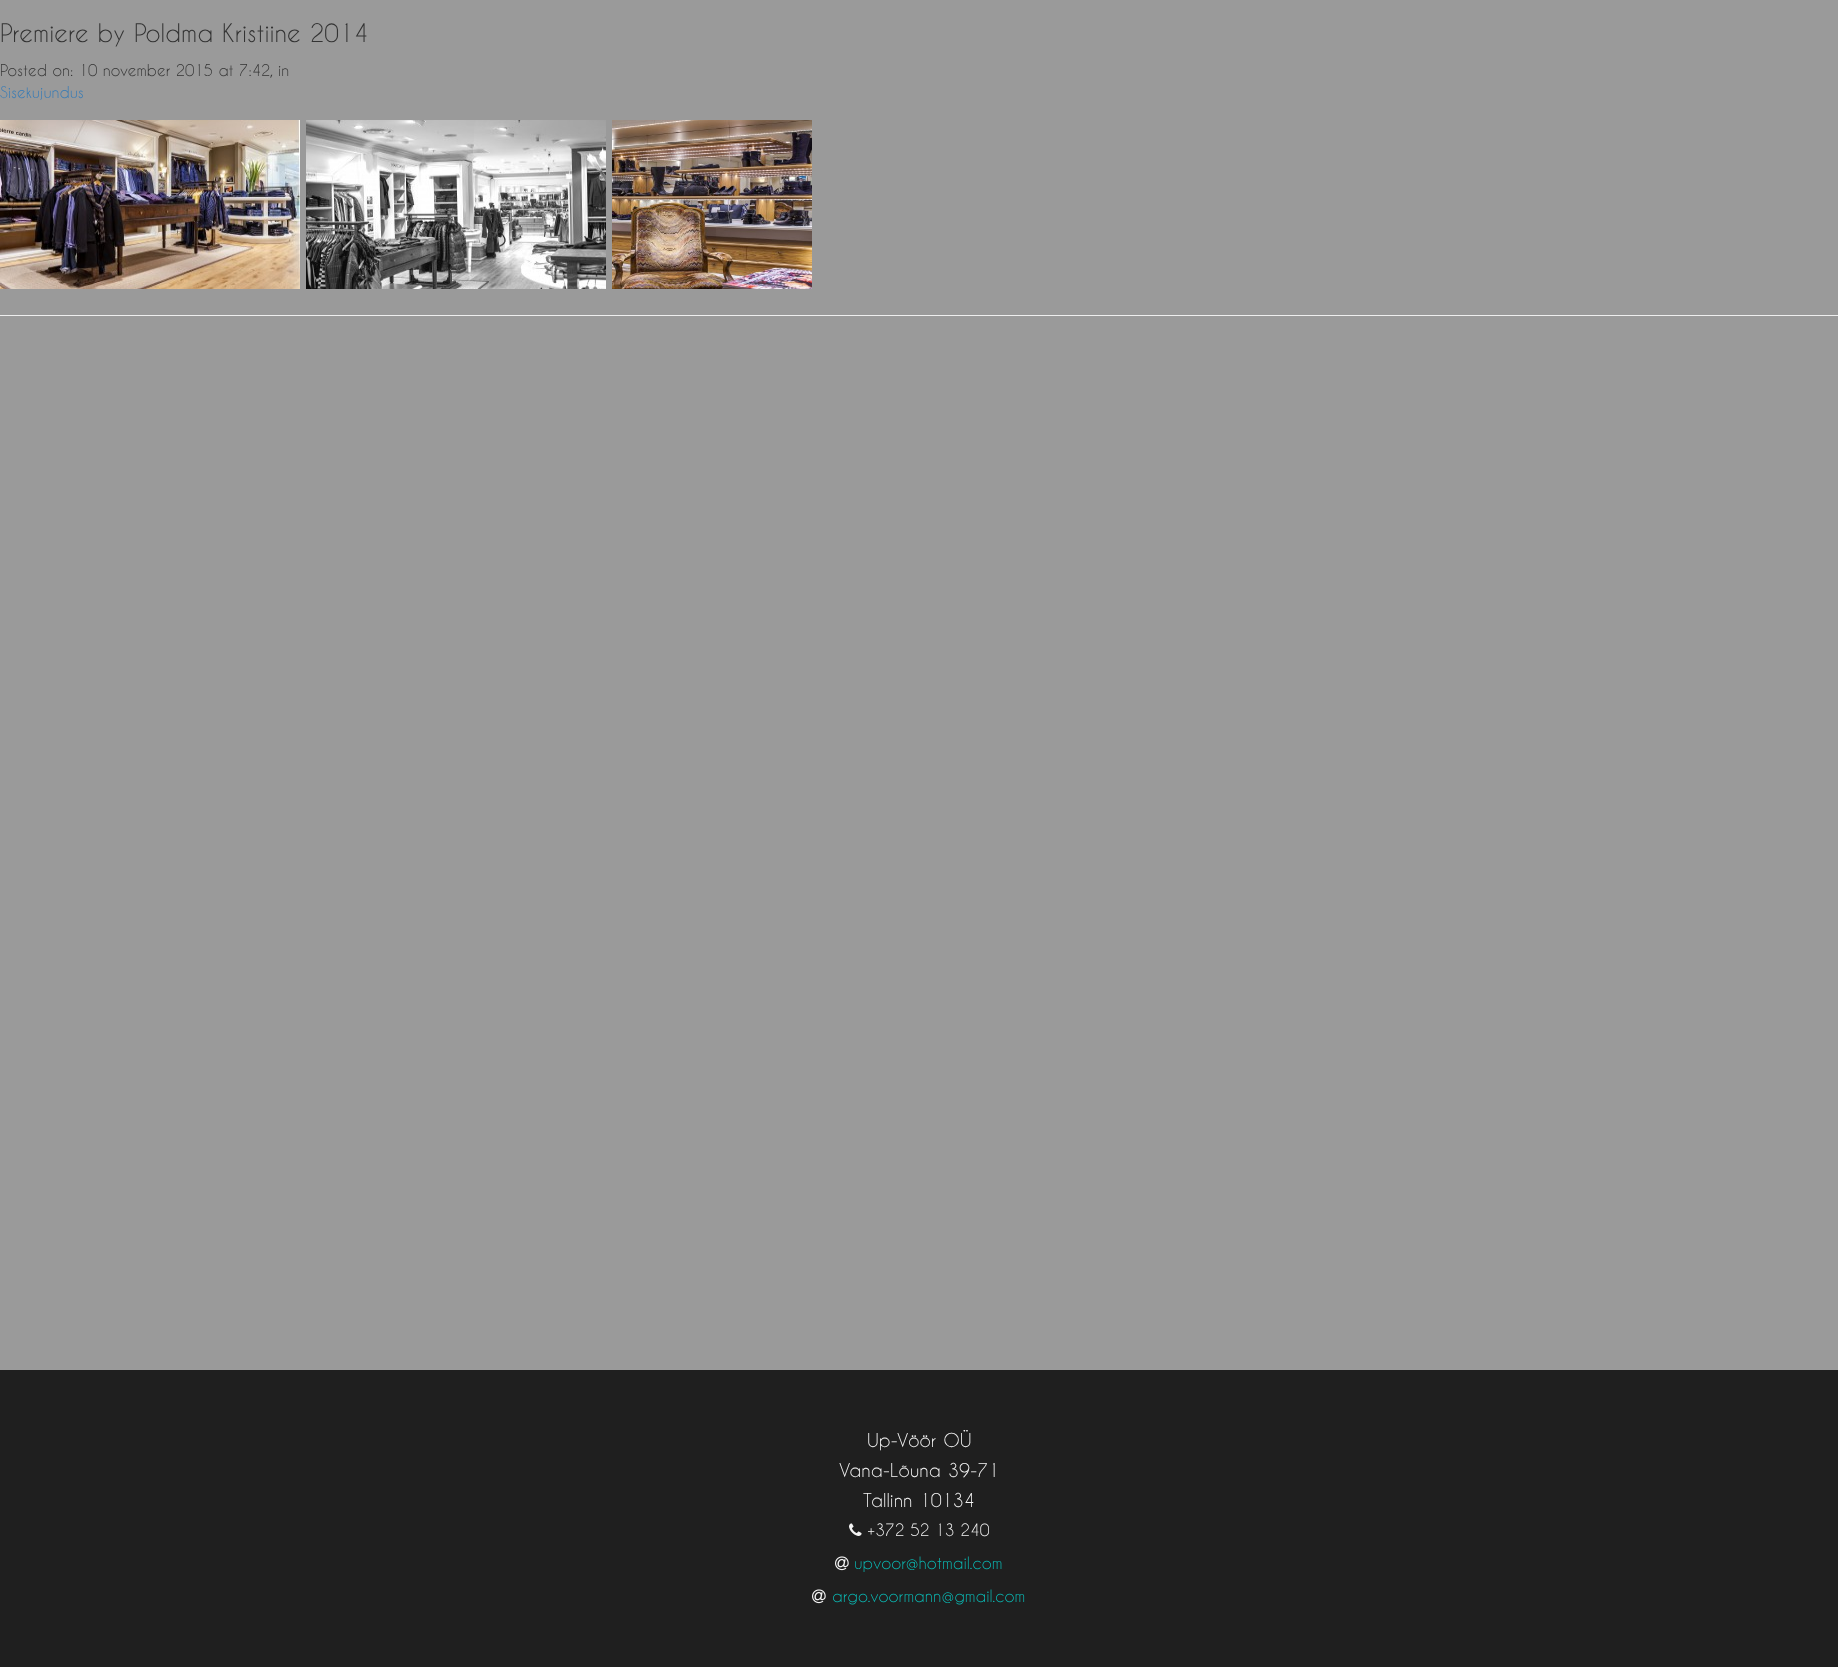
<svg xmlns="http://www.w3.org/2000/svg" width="1838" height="1667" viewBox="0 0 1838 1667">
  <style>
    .t1 { font: 24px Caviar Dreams; fill: #333; }
    .t2 { font: 15.25px Caviar Dreams; fill: #333; }
    .t3 { font: 15.25px Caviar Dreams; fill: #337ab7; }
    .t4 { font: 18px Caviar Dreams; fill: #f4f4f4; }
    .t5 { font: 16px Caviar Dreams; fill: #f4f4f4; }
    .t6 { font: 16px Caviar Dreams; fill: #0abab5; }
  </style>
  <rect width="100%" height="100%" fill="#9a9a9a"/>
  <text x="0" y="42" word-spacing="0.5" class="t1">Premiere by Poldma Kristiine 2014</text>
  <text x="0" y="76" word-spacing="0.25" class="t2">Posted on: 10 november 2015 at 7:42, in</text>
  <text x="0" y="98" class="t3">Sisekujundus</text>
  <image x="0" y="120" width="300" height="169" href="images/1.png"/>
  <image x="306" y="120" width="300" height="169" href="images/2.png"/>
  <image x="612" y="120" width="200" height="169" href="images/3.png"/>
  <rect x="0" y="315" width="1838" height="1" fill="#eee"/>
  <rect x="0" y="1370" width="1838" height="297" fill="#1f1f1f"/>
  <text x="867" y="1447" word-spacing="1" class="t4">Up-Vöör OÜ</text>
  <text x="839" y="1477" class="t4">Vana-Lõuna</text>
  <text x="948" y="1477" class="t4">39-71</text>
  <text x="863" y="1507" word-spacing="1" class="t4">Tallinn 10134</text>
  <image x="849" y="1523" width="13" height="13" href="images/4.png"/>
  <text x="867" y="1536" class="t5">+372 52 13 240</text>
  <image x="835" y="1556" width="14" height="15" href="images/5.png"/>
  <text x="854" y="1569" class="t6">upvoor@hotmail.com</text>
  <image x="812" y="1589" width="14" height="15" href="images/5.png"/>
  <text x="832" y="1602" class="t6">argo.voormann@gmail.com</text>
</svg>
